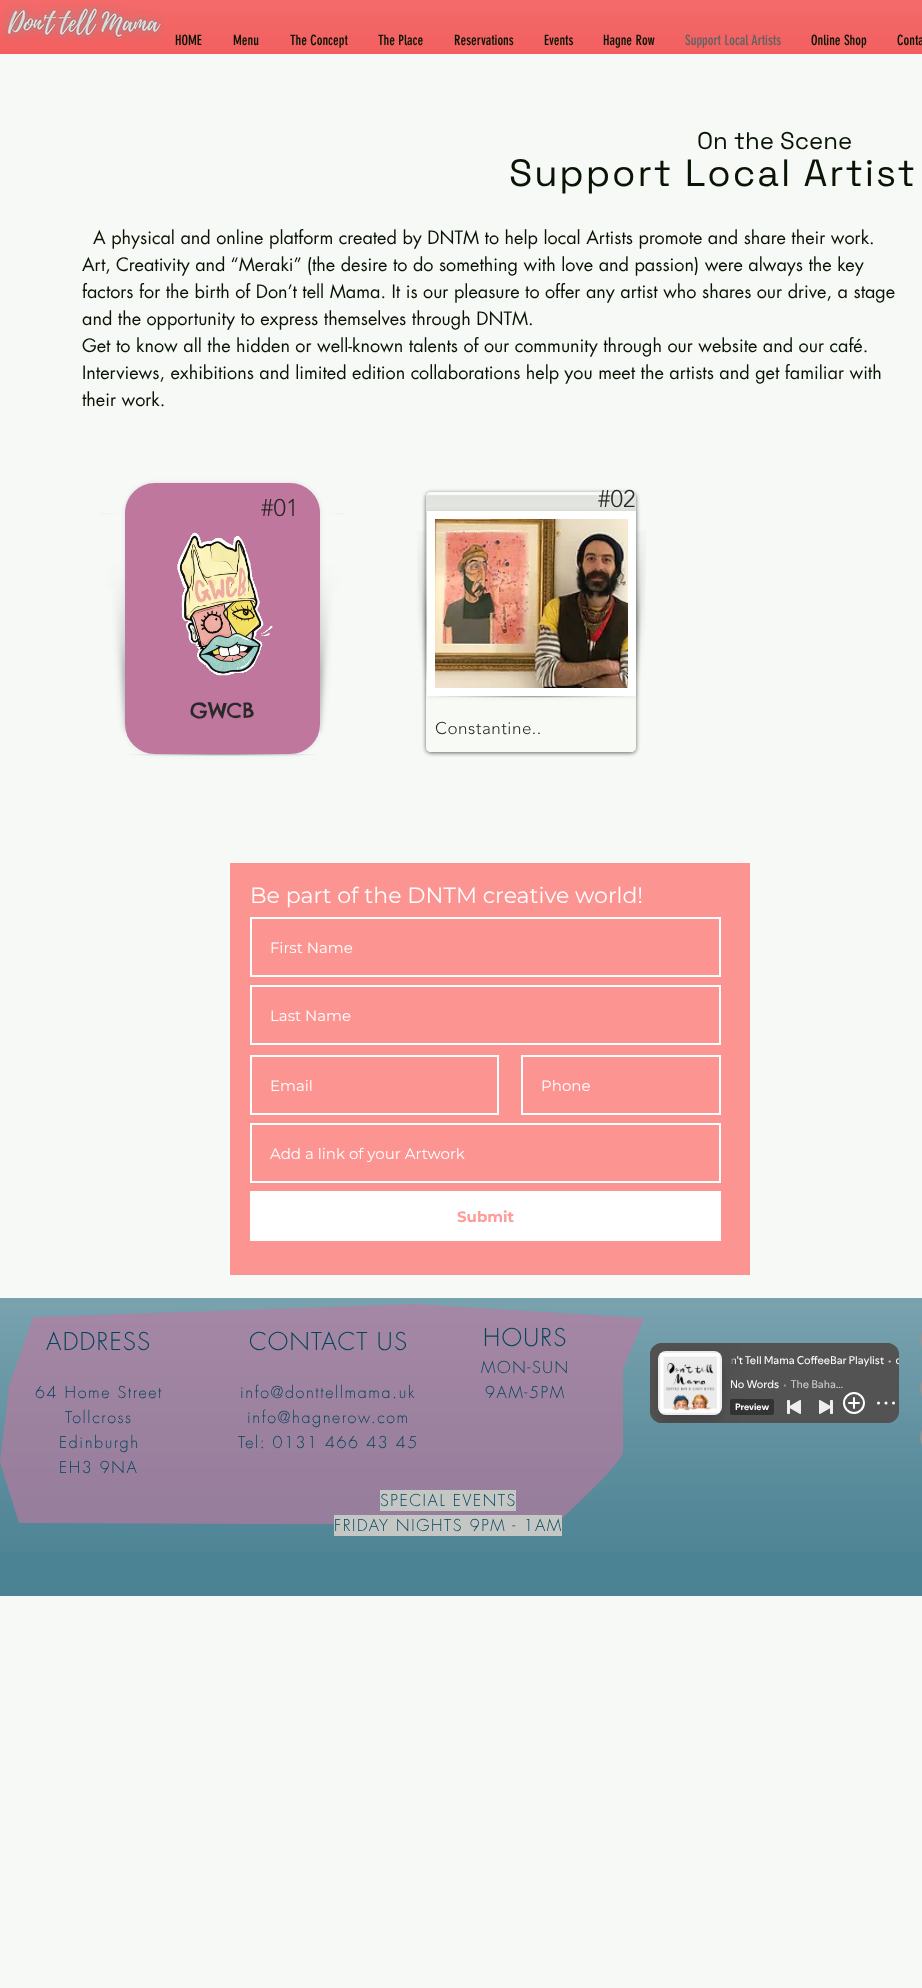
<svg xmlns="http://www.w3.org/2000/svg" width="922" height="1988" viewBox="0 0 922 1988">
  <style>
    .t1 { font: 14px 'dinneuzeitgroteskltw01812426'; fill: #091405; }
    .t2 { font: 14px 'dinneuzeitgroteskltw01812426'; fill: #626462; }
    .t3 { font: 24px Space Grotesk; fill: #091405; }
    .t4 { font: 38px Space Grotesk; letter-spacing: 1.9px; fill: #091405; }
    .t5 { font: 18px futura; fill: #091405; }
    .t6 { font: 300 24px 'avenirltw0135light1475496'; fill: #292929; }
    .t7 { font: 21px Chelsea Market; fill: #292929; }
    .t8 { font: 300 17px 'avenirltw0135light1475496'; letter-spacing: 0.5px; fill: #292929; }
    .t9 { font: 22px Montserrat; fill: #fff; }
    .t10 { font: 15px Montserrat; fill: #fff; }
    .t11 { font: bold 15px Montserrat; fill: #ff9b99; }
    .t12 { font: 300 24px futura; letter-spacing: 1.25px; fill: #034359; }
    .t13 { font: 300 16px futura; letter-spacing: 1.6px; fill: #034359; }
  </style>
  <defs>
    <clipPath id="clip1"><path d="M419 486H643V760H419ZM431 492H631C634 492 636 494 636 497V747C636 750 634 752 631 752H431C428 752 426 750 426 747V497C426 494 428 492 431 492Z" clip-rule="evenodd"/></clipPath>
  </defs>
  <rect width="100%" height="100%" fill="#f6f9f5"/>
  <rect x="0" y="0" width="922" height="54" fill="#f03737"/>
  <image x="0" y="0" width="922" height="54" href="images/1.png"/>
  <image x="2" y="3" width="163" height="38" href="images/2.png"/>
  <text x="175" y="45" class="t1">HOME</text>
  <text x="233" y="45" class="t1">Menu</text>
  <text x="290" y="45" class="t1">The Concept</text>
  <text x="378" y="45" class="t1">The Place</text>
  <text x="454" y="45" class="t1">Reservations</text>
  <text x="544" y="45" class="t1">Events</text>
  <text x="603" y="45" class="t1">Hagne Row</text>
  <text x="685" y="45" class="t2">Support Local Artists</text>
  <text x="811" y="45" class="t1">Online Shop</text>
  <text x="897" y="45" class="t1">Conta</text>
  <text x="697" y="149" class="t3">On the Scene</text>
  <text x="509" y="186" class="t4">Support Local Artist</text>
  <text x="93" y="244" class="t5">A physical and online platform created by DNTM to help local Artists promote and share their work.</text>
  <text x="82" y="271" class="t5">Art, Creativity and “Meraki” (the desire to do something with love and passion) were always the key</text>
  <text x="82" y="298" class="t5">factors for the birth of Don’t tell Mama. It is our pleasure to offer any artist who shares our drive, a stage</text>
  <text x="82" y="325" class="t5">and the opportunity to express themselves through DNTM.</text>
  <text x="82" y="352" class="t5">Get to know all the hidden or well-known talents of our community through our website and our café.</text>
  <text x="82" y="379" class="t5">Interviews, exhibitions and limited edition collaborations help you meet the artists and get familiar with</text>
  <text x="82" y="406" class="t5">their work.</text>
  <rect x="125" y="483" width="195" height="271" rx="30" fill="#0000001a" filter="blur(2.5px)"/>
  <image x="101" y="513" width="24" height="220" href="images/3.png"/>
  <rect x="129" y="487" width="187" height="263" rx="26" fill="#c0779e" stroke="#c0779e" stroke-width="8"/>
  <image x="177" y="532" width="96" height="144" href="images/4.png"/>
  <image x="129" y="754" width="187" height="2" href="images/5.png"/>
  <image x="320" y="513" width="24" height="220" href="images/6.png"/>
  <g clip-path="url(#clip1)">
    <rect x="426" y="493" width="210" height="260" rx="5" fill="#00000099" filter="blur(2px)"/>
  </g>
  <rect x="426" y="492" width="210" height="260" rx="5" fill="#f6f9f5b8"/>
  <image x="426" y="495" width="210" height="69" href="images/7.png"/>
  <rect x="427" y="511" width="209" height="185" fill="#0000001a" filter="blur(2.5px)"/>
  <rect x="427" y="511" width="209" height="185" fill="#fff"/>
  <image x="435" y="519" width="193" height="169" href="images/8.png"/>
  <image x="438" y="696" width="187" height="2" href="images/9.png"/>
  <image x="417" y="531" width="10" height="148" href="images/10.png"/>
  <image x="636" y="531" width="10" height="148" href="images/11.png"/>
  <text x="261" y="516" class="t6">#01</text>
  <text x="598" y="507" class="t6">#02</text>
  <text x="190" y="718" class="t7">GWCB</text>
  <text x="435" y="734" class="t8">Constantine..</text>
  <rect x="230" y="863" width="520" height="412" fill="#fc9592"/>
  <text x="250" y="903" class="t9">Be part of the DNTM creative world!</text>
  <rect x="251" y="918" width="469" height="58" fill="none" stroke="#fff" stroke-width="2"/>
  <text x="270" y="953" class="t10">First Name</text>
  <rect x="251" y="986" width="469" height="58" fill="none" stroke="#fff" stroke-width="2"/>
  <text x="270" y="1021" class="t10">Last Name</text>
  <rect x="251" y="1056" width="247" height="58" fill="none" stroke="#fff" stroke-width="2"/>
  <text x="270" y="1091" class="t10">Email</text>
  <rect x="522" y="1056" width="198" height="58" fill="none" stroke="#fff" stroke-width="2"/>
  <text x="541" y="1091" class="t10">Phone</text>
  <rect x="251" y="1124" width="469" height="58" fill="none" stroke="#fff" stroke-width="2"/>
  <text x="270" y="1159" class="t10">Add a link of your Artwork</text>
  <rect x="250" y="1191" width="471" height="50" fill="#fff"/>
  <text x="457" y="1222" class="t11">Submit</text>
  <rect x="0" y="1298" width="922" height="298" fill="#4c8394"/>
  <image x="0" y="1298" width="922" height="254" href="images/12.png"/>
  <path d="M8 1389C9 1394 0 1462 0 1462L19 1523L555 1525C555 1525 623 1463 623 1452V1369L644 1318L414 1304L33 1317Z" fill="#c0779e9e"/>
  <text x="46" y="1350" class="t12">ADDRESS</text>
  <text x="35" y="1398" class="t13">64 Home Street</text>
  <text x="65" y="1423" class="t13">Tollcross</text>
  <text x="59" y="1448" class="t13">Edinburgh</text>
  <text x="59" y="1473" class="t13">EH3 9NA</text>
  <text x="249" y="1350" class="t12">CONTACT US</text>
  <text x="240" y="1398" class="t13">info@donttellmama.uk</text>
  <text x="247" y="1423" class="t13">info@hagnerow.com</text>
  <text x="238" y="1448" class="t13">Tel: 0131 466 43 45</text>
  <text x="483" y="1346" class="t12">HOURS</text>
  <text x="481" y="1373" class="t13">MON-SUN</text>
  <text x="485" y="1398" class="t13">9AM-5PM</text>
  <image x="650" y="1343" width="249" height="80" href="images/13.png"/>
  <image x="920" y="1331" width="2" height="17" href="images/14.png"/>
  <image x="920" y="1380" width="2" height="17" href="images/15.png"/>
  <image x="920" y="1429" width="2" height="17" href="images/16.png"/>
  <rect x="380" y="1490" width="136" height="21" fill="#c5c7c4"/>
  <text x="380" y="1506" class="t13">SPECIAL EVENTS</text>
  <rect x="334" y="1515" width="228" height="21" fill="#c5c7c4"/>
  <text x="334" y="1531" class="t13">FRIDAY NIGHTS 9PM - 1AM</text>
</svg>
